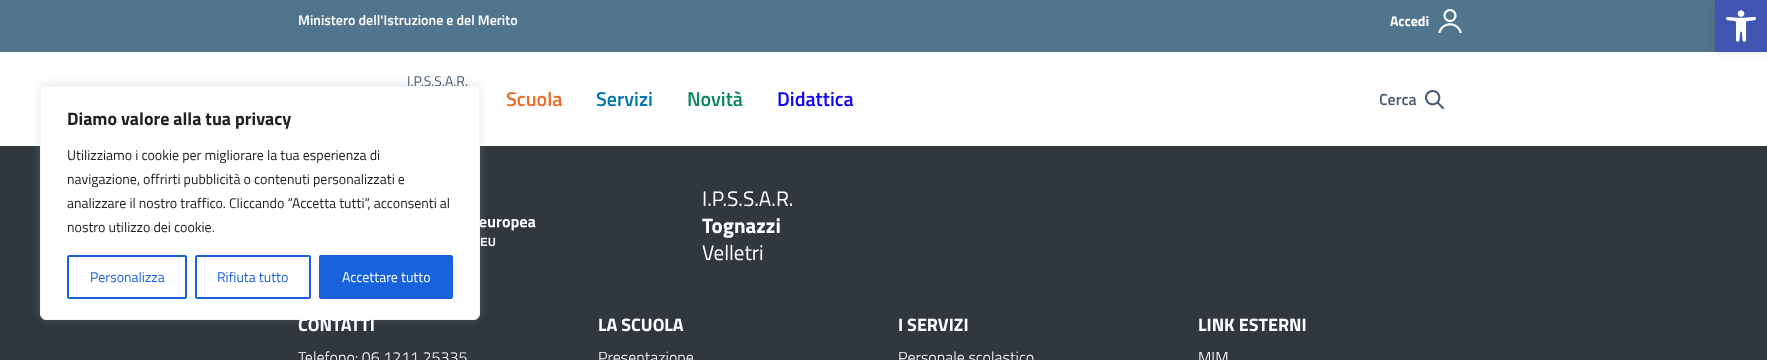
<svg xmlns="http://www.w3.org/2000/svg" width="1767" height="360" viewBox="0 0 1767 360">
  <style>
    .t1 { font: 14px Titillium Web; fill: #455b71; }
    .t2 { font: bold 18px Titillium Web; fill: #212121; }
    .t3 { font: 14px Titillium Web; fill: #212121; }
    .t4 { font: 14px Titillium Web; fill: #1863dc; }
    .t5 { font: 14px Titillium Web; fill: #fff; }
    .t6 { font: 600 14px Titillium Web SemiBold; fill: #fff; }
    .t7 { font: bold 14px Titillium Web; fill: #fff; }
    .t8 { font: 600 20px Titillium Web SemiBold; fill: #eb6c27; }
    .t9 { font: 600 20px Titillium Web SemiBold; fill: #0075af; }
    .t10 { font: 600 20px Titillium Web SemiBold; fill: #0e865c; }
    .t11 { font: 600 20px Titillium Web SemiBold; fill: #0d00ff; }
    .t12 { font: 600 16px Titillium Web SemiBold; fill: #455b71; }
    .t13 { font: 21px Titillium Web; fill: #fff; }
    .t14 { font: bold 21px Titillium Web; fill: #fff; }
    .t15 { font: bold 18px Titillium Web; fill: #fff; }
    .t16 { font: 300 16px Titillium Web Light; fill: #fff; }
  </style>
  <rect width="100%" height="100%" fill="#30373d"/>
  <rect x="0" y="52" width="1767" height="94" fill="#fff"/>
  <image x="480" y="219" width="56" height="28" href="images/3.png"/>
  <rect x="40" y="85" width="440" height="234" rx="6" fill="#acabab4d" filter="blur(5px)"/>
  <text x="407" y="86" class="t1">I.P.S.S.A.R.</text>
  <rect x="40.5" y="86.5" width="439" height="233" rx="5.5" fill="#fff" stroke="#f4f4f4"/>
  <text x="67" y="125" class="t2">Diamo valore alla tua privacy</text>
  <text x="67" y="160" class="t3">Utilizziamo i cookie per migliorare la tua esperienza di</text>
  <text x="67" y="184" class="t3">navigazione, offrirti pubblicità o contenuti personalizzati e</text>
  <text x="67" y="208" class="t3">analizzare il nostro traffico. Cliccando “Accetta tutti”, acconsenti al</text>
  <text x="67" y="232" class="t3">nostro utilizzo dei cookie.</text>
  <rect x="68" y="256" width="118" height="42" rx="1" fill="none" stroke="#1863dc" stroke-width="2"/>
  <text x="90" y="282" class="t4">Personalizza</text>
  <rect x="196" y="256" width="114" height="42" rx="1" fill="none" stroke="#1863dc" stroke-width="2"/>
  <text x="217" y="282" class="t4">Rifiuta tutto</text>
  <rect x="320" y="256" width="132" height="42" rx="1" fill="#1863dc" stroke="#1863dc" stroke-width="2"/>
  <text x="342" y="282" class="t5">Accettare tutto</text>
  <rect x="0" y="0" width="1715" height="52" fill="#51758d"/>
  <text x="298" y="25" class="t6">Ministero dell'Istruzione e del Merito</text>
  <text x="1390" y="26" class="t7">Accedi</text>
  <image x="1438" y="9" width="24" height="24" href="images/1.png"/>
  <text x="506" y="106" class="t8">Scuola</text>
  <text x="596" y="106" class="t9">Servizi</text>
  <text x="687" y="106" class="t10">Novità</text>
  <text x="777" y="106" class="t11">Didattica</text>
  <text x="1379" y="105" class="t12">Cerca</text>
  <image x="1425" y="90" width="19" height="19" href="images/2.png"/>
  <text x="702" y="206" class="t13">I.P.S.S.A.R.</text>
  <text x="702" y="233" class="t14">Tognazzi</text>
  <text x="702" y="260" class="t13">Velletri</text>
  <text x="298" y="331" class="t15">CONTATTI</text>
  <text x="298" y="363" class="t16">Telefono: 06 1211 25335</text>
  <text x="598" y="331" class="t15">LA SCUOLA</text>
  <text x="598" y="363" class="t16">Presentazione</text>
  <text x="898" y="331" class="t15">I SERVIZI</text>
  <text x="898" y="363" class="t16">Personale scolastico</text>
  <text x="1198" y="331" class="t15">LINK ESTERNI</text>
  <text x="1198" y="363" class="t16">MIM</text>
  <rect x="1715" y="0" width="52" height="52" fill="#0000001a" filter="blur(5px)"/>
  <rect x="1715" y="0" width="52" height="52" fill="#4054b2"/>
  <image x="1726" y="10" width="30" height="32" href="images/4.png"/>
</svg>
